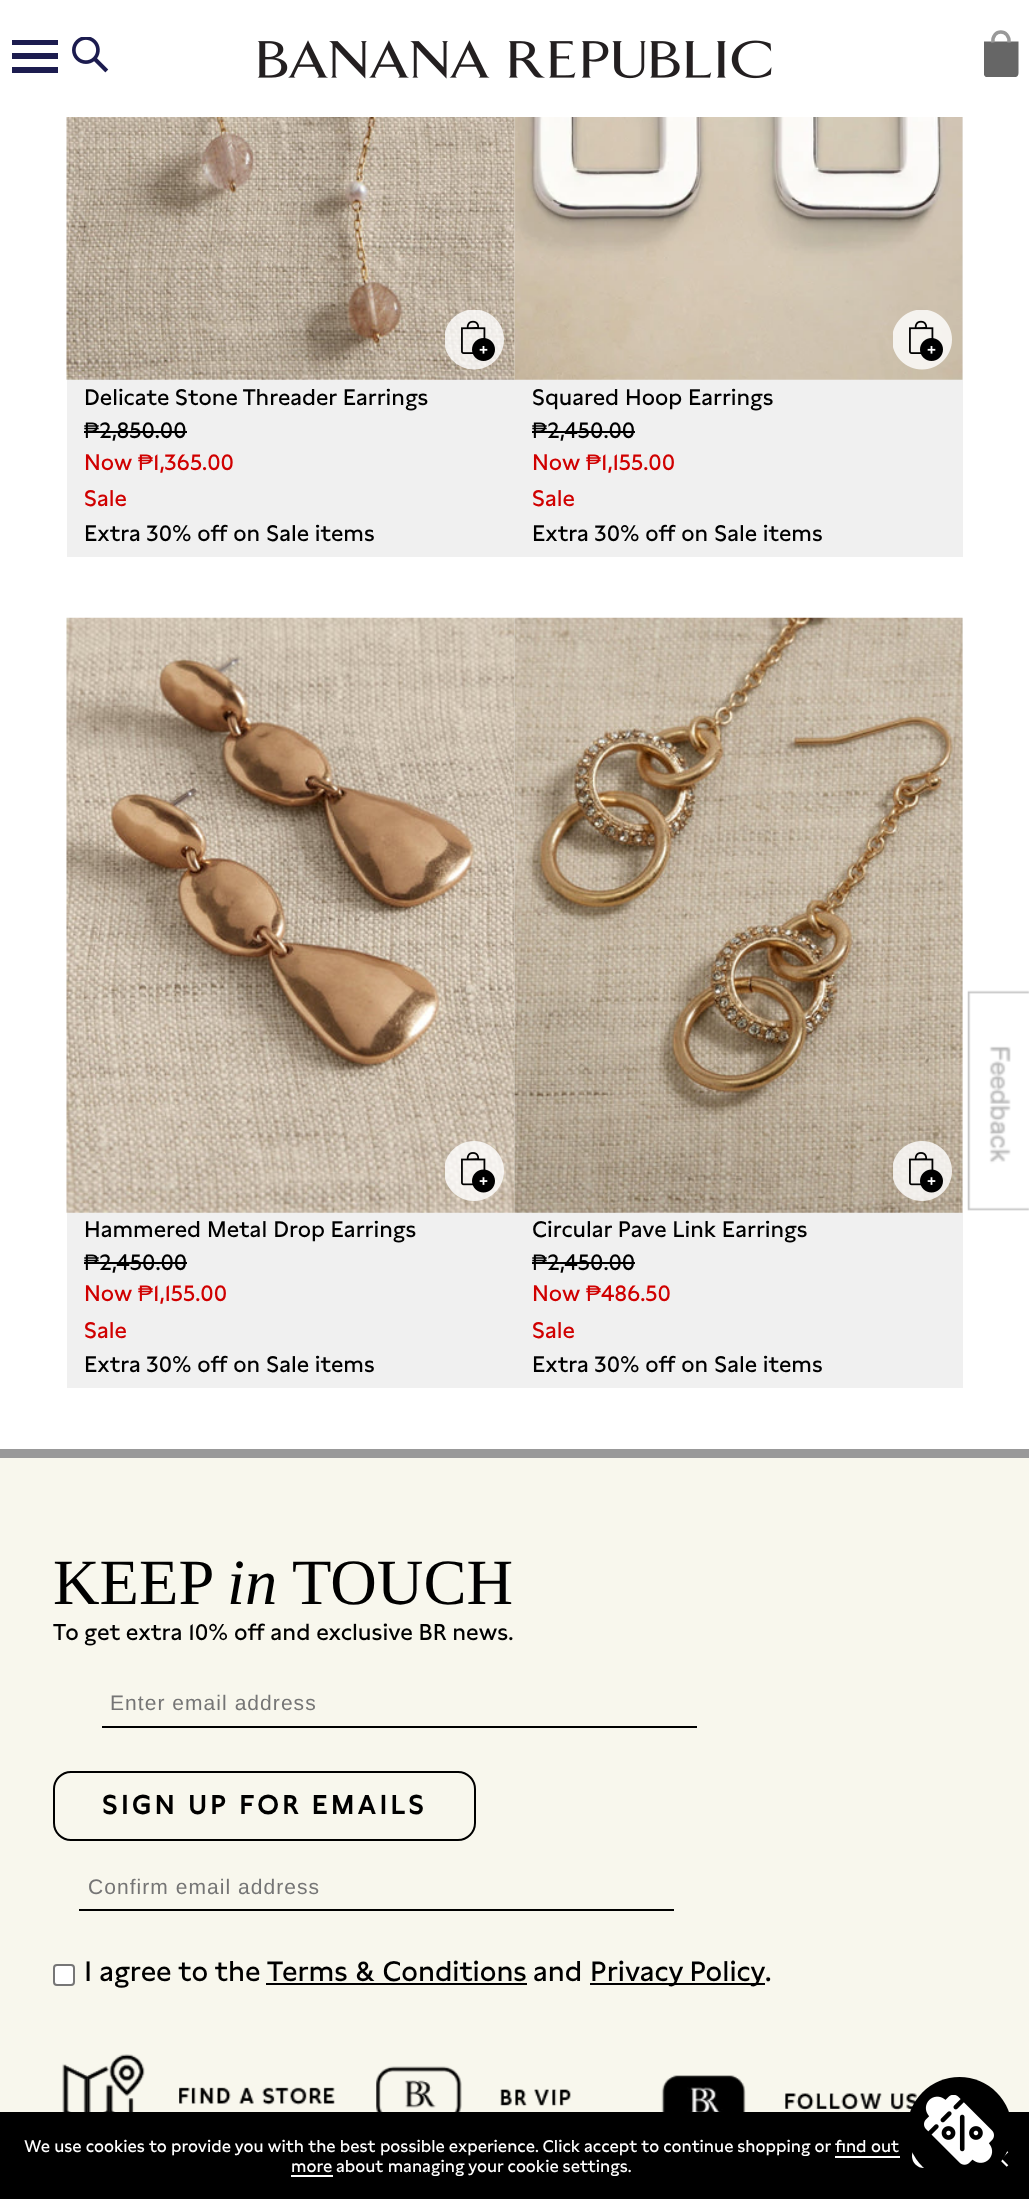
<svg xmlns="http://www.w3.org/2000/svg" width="1029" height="2199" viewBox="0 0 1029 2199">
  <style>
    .t1 { font: 22.4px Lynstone; fill: #000; }
    .t2 { font: 22.4px Liberation Sans; fill: #000; }
    .t3 { font: 22.4px Lynstone; fill: #d00000; }
    .t4 { font: 22.4px Liberation Sans; fill: #d00000; }
    .t5 { font: 64.5px Liberation Serif; fill: #000; }
    .t6 { font: italic 64.5px Liberation Serif; fill: #000; }
    .t7 { font: 22.75px Lynstone; fill: #000; }
    .t8 { font: 21px Liberation Sans; letter-spacing: 1.05px; fill: #757575; }
    .t9 { font: bold 26.25px Lynstone; letter-spacing: 3.5px; fill: #000; }
    .t10 { font: 28px Lynstone; fill: #000; }
    .t11 { font: 16.8px Lynstone; fill: #fff; }
  </style>
  <defs>
    <clipPath id="clip1"><rect x="11" y="40" width="49" height="34"/></clipPath>
    <clipPath id="clip2"><rect x="984" y="30" width="35" height="47"/></clipPath>
  </defs>
  <rect width="100%" height="100%" fill="#fff"/>
  <g clip-path="url(#clip1)">
    <path d="M12 39H58V45H12ZM12 53H58V59H12ZM12 67H58V73H12Z" fill="#1c1c4f"/>
  </g>
  <image x="72" y="37" width="37" height="36" href="images/1.png"/>
  <image x="257" y="40" width="515" height="39" href="images/2.png"/>
  <g clip-path="url(#clip2)">
    <path d="M983.5 41.5V73C983.5 73 983.5 77.5 988 77.5H1014C1014 77.5 1018.5 77.5 1018.5 73V41.5Z" fill="#666"/>
  </g>
  <path d="M993 42.5C991.5 28.5 1010 28.5 1009 42.5" fill="none" stroke="#999" stroke-width="3.5"/>
  <rect x="67" y="117" width="896" height="440" fill="#f0f0f0"/>
  <image x="66" y="117" width="449" height="263" href="images/3.png"/>
  <image x="445" y="310" width="59" height="60" href="images/4.png"/>
  <text x="84" y="405" class="t1">Delicate Stone Threader Earrings</text>
  <text x="84" y="438" class="t2">₱</text>
  <text x="99" y="438" class="t1">2,850.00</text>
  <rect x="84" y="431" width="103" height="2" fill="#000"/>
  <text x="84" y="470" class="t3">Now</text>
  <text x="138" y="470" class="t4">₱</text>
  <text x="153" y="470" class="t3">1,365.00</text>
  <text x="84" y="506" class="t3">Sale</text>
  <text x="84" y="541" class="t1">Extra 30% off on Sale items</text>
  <image x="514" y="117" width="449" height="263" href="images/5.png"/>
  <image x="893" y="310" width="59" height="60" href="images/6.png"/>
  <text x="532" y="405" class="t1">Squared Hoop Earrings</text>
  <text x="532" y="438" class="t2">₱</text>
  <text x="547" y="438" class="t1">2,450.00</text>
  <rect x="532" y="431" width="103" height="2" fill="#000"/>
  <text x="532" y="470" class="t3">Now</text>
  <text x="586" y="470" class="t4">₱</text>
  <text x="601" y="470" class="t3">1,155.00</text>
  <text x="532" y="506" class="t3">Sale</text>
  <text x="532" y="541" class="t1">Extra 30% off on Sale items</text>
  <rect x="67" y="618" width="896" height="770" fill="#f0f0f0"/>
  <image x="66" y="617" width="449" height="596" href="images/7.png"/>
  <image x="445" y="1141" width="59" height="60" href="images/8.png"/>
  <text x="84" y="1237" class="t1">Hammered Metal Drop Earrings</text>
  <text x="84" y="1270" class="t2">₱</text>
  <text x="99" y="1270" class="t1">2,450.00</text>
  <rect x="84" y="1262" width="103" height="2" fill="#000"/>
  <text x="84" y="1301" class="t3">Now</text>
  <text x="138" y="1301" class="t4">₱</text>
  <text x="153" y="1301" class="t3">1,155.00</text>
  <text x="84" y="1338" class="t3">Sale</text>
  <text x="84" y="1372" class="t1">Extra 30% off on Sale items</text>
  <image x="514" y="617" width="449" height="596" href="images/9.png"/>
  <image x="893" y="1141" width="59" height="60" href="images/10.png"/>
  <text x="532" y="1237" class="t1">Circular Pave Link Earrings</text>
  <text x="532" y="1270" class="t2">₱</text>
  <text x="547" y="1270" class="t1">2,450.00</text>
  <rect x="532" y="1262" width="103" height="2" fill="#000"/>
  <text x="532" y="1301" class="t3">Now</text>
  <text x="586" y="1301" class="t4">₱</text>
  <text x="601" y="1301" class="t3">486.50</text>
  <text x="532" y="1338" class="t3">Sale</text>
  <text x="532" y="1372" class="t1">Extra 30% off on Sale items</text>
  <image x="967" y="990" width="62" height="221" href="images/11.png"/>
  <rect x="0" y="1449" width="1029" height="9" fill="#999"/>
  <rect x="0" y="1458" width="1029" height="654" fill="#f8f7ed"/>
  <text x="53" y="1604" class="t5">KEEP</text>
  <text x="227" y="1604" class="t6">in</text>
  <text x="292" y="1604" class="t5">TOUCH</text>
  <text x="53" y="1640" class="t7">To get extra 10% off and exclusive BR news.</text>
  <rect x="102" y="1726" width="595" height="2" fill="#000"/>
  <text x="110" y="1710" class="t8">Enter email address</text>
  <rect x="54" y="1772" width="421" height="68" rx="17" fill="none" stroke="#000" stroke-width="2"/>
  <text x="102" y="1814" class="t9">SIGN UP FOR EMAILS</text>
  <rect x="79" y="1909" width="595" height="2" fill="#000"/>
  <text x="88" y="1894" class="t8">Confirm email address</text>
  <rect x="54" y="1965" width="20" height="20" rx="3" fill="#fff" stroke="#767676" stroke-width="2"/>
  <text x="84" y="1981" class="t10">I agree to the</text>
  <text x="267" y="1981" class="t10">Terms &amp; Conditions</text>
  <rect x="266" y="1983" width="261" height="2" fill="#000"/>
  <text x="533" y="1981" class="t10">and</text>
  <rect x="590" y="1983" width="175" height="2" fill="#000"/>
  <text x="590" y="1981" word-spacing="-1" class="t10">Privacy Policy</text>
  <text x="765" y="1981" class="t10">.</text>
  <image x="62" y="2054" width="273" height="58" href="images/12.png"/>
  <image x="376" y="2066" width="195" height="46" href="images/13.png"/>
  <image x="661" y="2075" width="256" height="37" href="images/14.png"/>
  <rect x="0" y="2112" width="1029" height="87" fill="#000"/>
  <text x="24" y="2152" class="t11">We use cookies to provide you with the best possible experience. Click accept to continue shopping or find out</text>
  <text x="291" y="2172" class="t11">more</text>
  <rect x="835" y="2156" width="65" height="2" fill="#fff"/>
  <rect x="291" y="2175" width="42" height="2" fill="#fff"/>
  <text x="336" y="2172" class="t11">about managing your cookie settings.</text>
  <rect x="912" y="2144" width="72" height="24" rx="12" fill="#fff"/>
  <path d="M993 2166L1007.5 2151.5M993 2151.5L1007.5 2166" fill="none" stroke="#fff" stroke-width="2.2"/>
  <circle cx="959.5" cy="2129.5" r="52.5" fill="#000"/>
  <image x="924" y="2095" width="70" height="70" href="images/15.png"/>
</svg>
